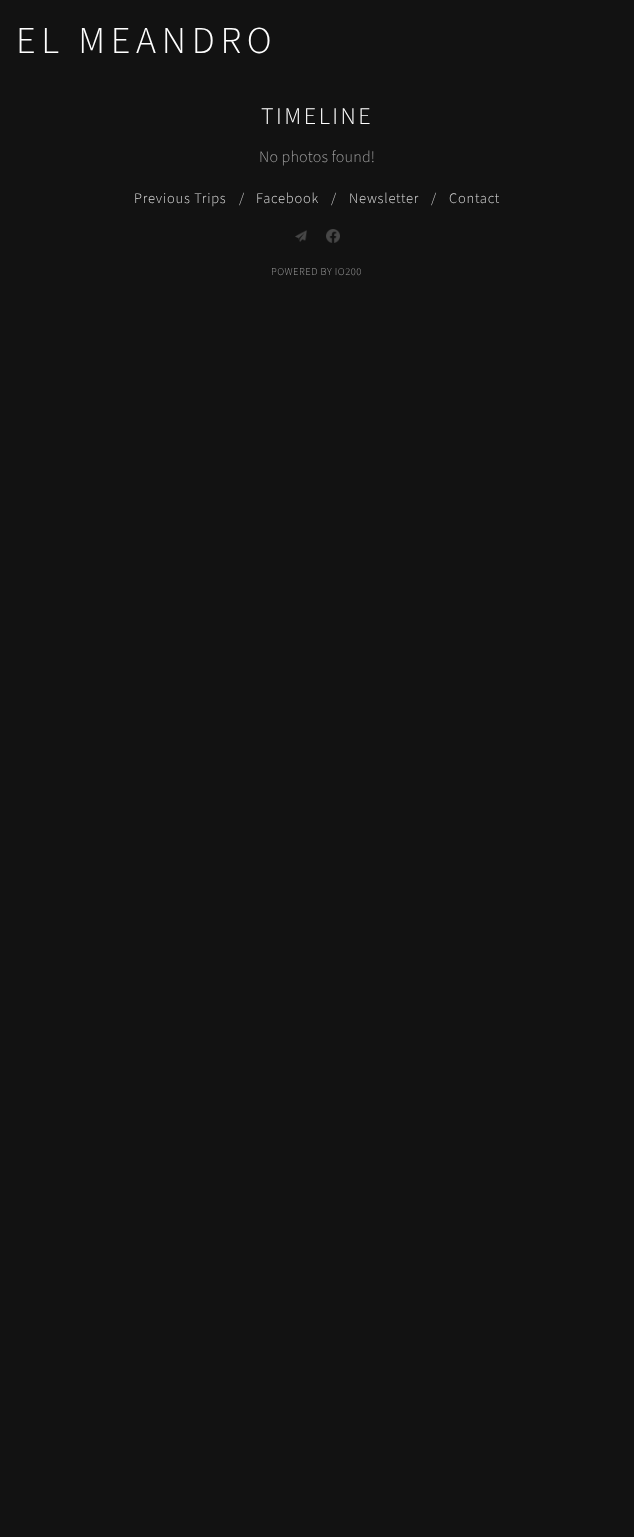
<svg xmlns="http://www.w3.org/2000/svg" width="634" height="1537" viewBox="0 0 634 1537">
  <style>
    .t1 { font: 300 38px 'Source Sans 3'; letter-spacing: 5.75px; fill: #fff; }
    .t2 { font: 300 24px 'Source Sans 3'; letter-spacing: 2.5px; fill: #fff; }
    .t3 { font: 300 16px 'Source Sans 3'; letter-spacing: 0.2px; fill: #9f9f9f; }
    .t4 { font: 300 14.5px 'Source Sans 3'; letter-spacing: 0.75px; fill: #dcdcdc; }
    .t5 { font: 300 14.5px 'Source Sans 3'; letter-spacing: 0.75px; fill: #c8c8c8; }
    .t6 { font: 300 10.5px 'Source Sans 3'; letter-spacing: 0.5px; fill: #9f9f9f; }
  </style>
  <rect width="100%" height="100%" fill="#121212"/>
  <text x="16" y="53" class="t1">EL MEANDRO</text>
  <text x="261" y="124" class="t2">TIMELINE</text>
  <text x="259" y="162" class="t3">No photos found!</text>
  <text x="134" y="203" class="t4">Previous Trips</text>
  <text x="239" y="203" class="t5">/</text>
  <text x="256" y="203" class="t4">Facebook</text>
  <text x="331" y="203" class="t5">/</text>
  <text x="349" y="203" class="t4">Newsletter</text>
  <text x="431" y="203" class="t5">/</text>
  <text x="449" y="203" class="t4">Contact</text>
  <image x="295" y="230" width="12" height="12" href="images/1.png"/>
  <image x="326" y="229" width="14" height="14" href="images/2.png"/>
  <text x="271" y="275" class="t6">POWERED BY IO200</text>
</svg>
